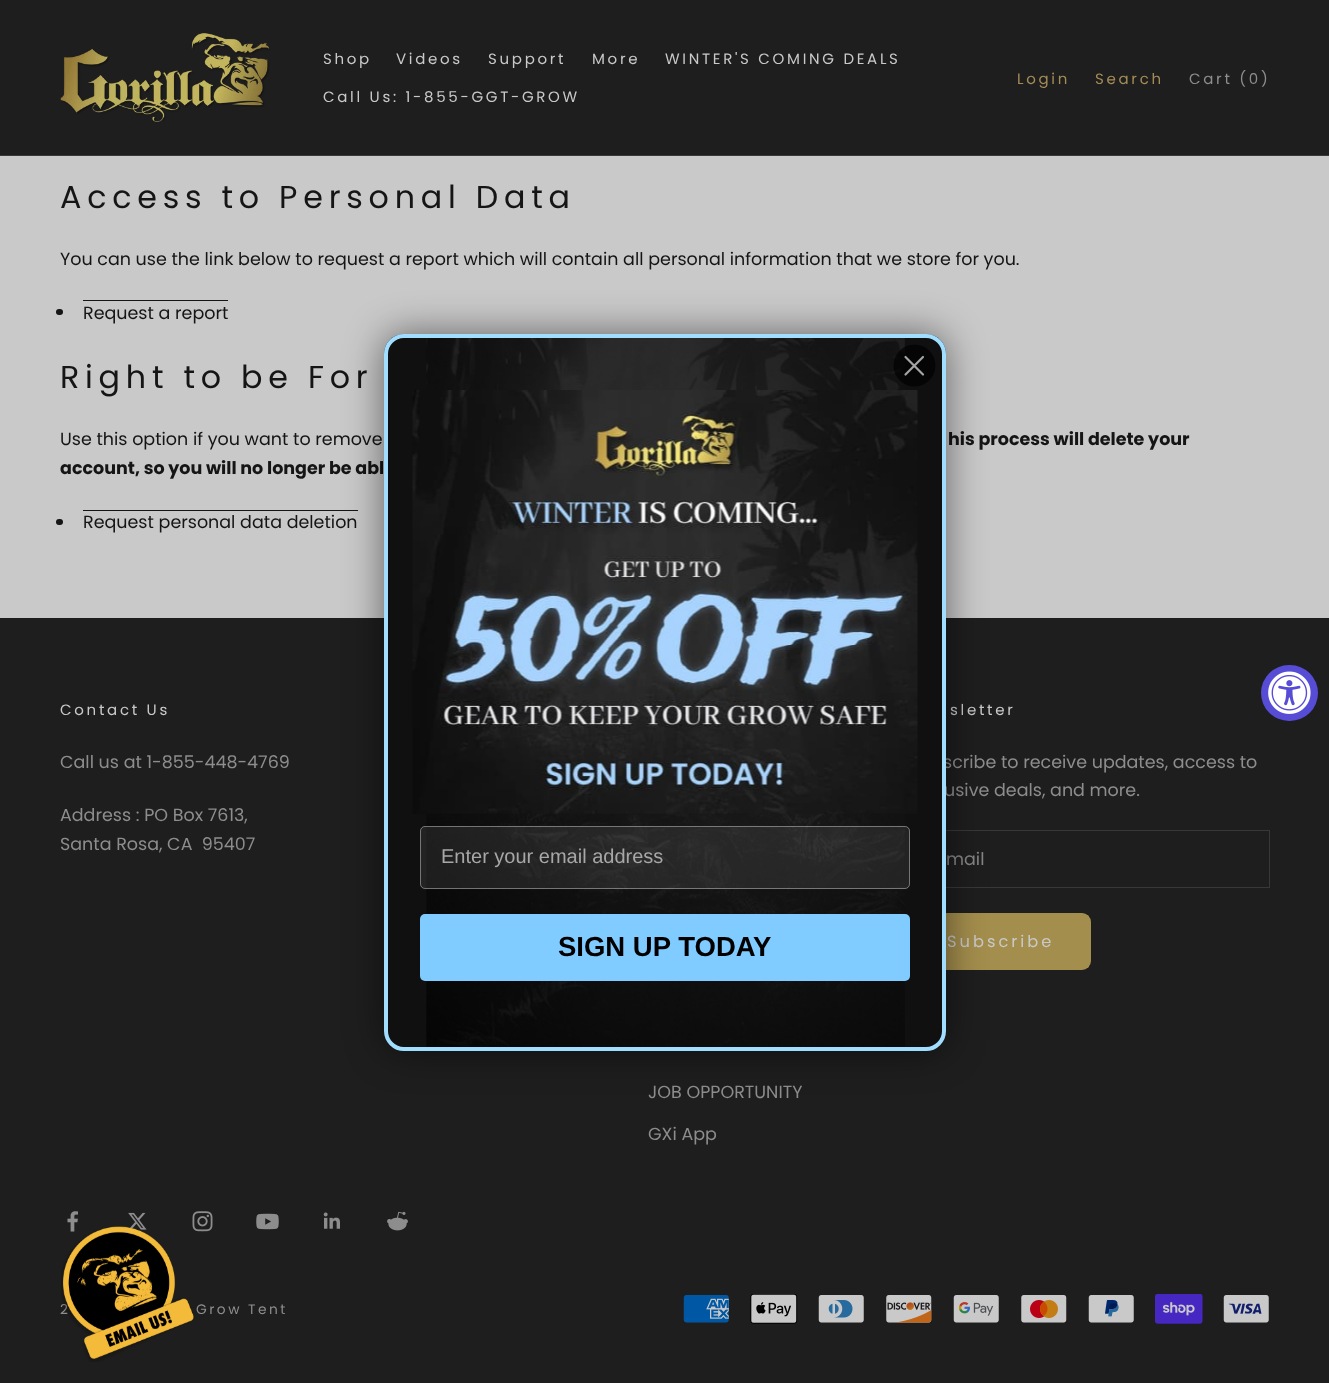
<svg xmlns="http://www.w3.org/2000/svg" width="1329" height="1383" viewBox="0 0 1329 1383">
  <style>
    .t1 { font: 15px Poppins; letter-spacing: 2.7px; fill: #c9c9c9; }
    .t2 { font: 15px Poppins; letter-spacing: 2.7px; fill: #a48c57; }
    .t3 { font: 15px Poppins; letter-spacing: 2.7px; fill: #8d8d8d; }
    .t4 { font: 31.75px Poppins; letter-spacing: 5.75px; fill: #161515; }
    .t5 { font: 17.5px Poppins; fill: #161515; }
    .t6 { font: bold 17.5px Poppins; fill: #161515; }
    .t7 { font: 17.5px Poppins; fill: #8d8d8d; }
    .t8 { font: 17.5px Poppins; fill: #858585; }
    .t9 { font: 16.25px Poppins; letter-spacing: 3px; fill: #c9c9c9; }
    .t10 { font: 13.75px Poppins; letter-spacing: 2.5px; fill: #8d8d8d; }
    .t11 { font: 20px Liberation Sans; fill: #a7a7a7; }
    .t12 { font: bold 27.5px Liberation Sans; fill: #000; }
  </style>
  <defs>
    <clipPath id="clip1"><rect x="910" y="913" width="181" height="57" rx="9"/></clipPath>
  </defs>
  <rect width="100%" height="100%" fill="#c9c9c9"/>
  <rect x="0" y="0" width="1329" height="155" fill="#1e1e1e"/>
  <rect x="0" y="155" width="1329" height="1" fill="#383838"/>
  <image x="60" y="33" width="210" height="89" href="images/1.png"/>
  <text x="323" y="64" class="t1">Shop</text>
  <text x="396" y="64" class="t1">Videos</text>
  <text x="488" y="64" class="t1">Support</text>
  <text x="592" y="64" class="t1">More</text>
  <text x="665" y="64" class="t1">WINTER'S COMING DEALS</text>
  <text x="323" y="102" class="t1">Call Us: 1-855-GGT-GROW</text>
  <text x="1017" y="84" class="t2">Login</text>
  <text x="1095" y="84" class="t2">Search</text>
  <text x="1189" y="84" class="t3">Cart (0)</text>
  <text x="60" y="208" class="t4">Access to Personal Data</text>
  <text x="60" y="265" class="t5">You can use the link below to request a report which will contain all personal information that we store for you.</text>
  <rect x="56" y="309" width="7" height="6" rx="3" fill="#161515"/>
  <text x="83" y="319" class="t5">Request a report</text>
  <rect x="83" y="300" width="145" height="1" fill="#161515"/>
  <text x="60" y="388" class="t4">Right to be For</text>
  <text x="60" y="445" class="t5">Use this option if you want to remove</text>
  <text x="948" y="445" class="t6">his process will delete your</text>
  <text x="60" y="474" class="t6">account, so you will no longer be abl</text>
  <rect x="56" y="519" width="7" height="6" rx="3" fill="#161515"/>
  <text x="83" y="528" class="t5">Request personal data deletion</text>
  <rect x="83" y="510" width="275" height="1" fill="#161515"/>
  <rect x="0" y="618" width="1329" height="765" fill="#1e1e1e"/>
  <text x="60" y="715" class="t1">Contact Us</text>
  <text x="60" y="768" class="t7">Call us at 1-855-448-4769</text>
  <text x="60" y="821" class="t7">Address : PO Box 7613,</text>
  <text x="60" y="850" class="t7" xml:space="preserve">Santa Rosa, CA  95407</text>
  <text x="950" y="715" class="t1">sletter</text>
  <text x="943" y="768" class="t7">scribe to receive updates, access to</text>
  <text x="944" y="796" class="t7">usive deals, and more.</text>
  <rect x="910.5" y="830.5" width="359" height="57" fill="none" stroke="#383838"/>
  <text x="946" y="865" class="t8">mail</text>
  <g clip-path="url(#clip1)">
    <rect x="946" y="915" width="143" height="53" fill="#a48e4d"/>
  </g>
  <rect x="911.5" y="914.5" width="178" height="54" rx="7.5" fill="none" stroke="#a48e4d" stroke-width="3"/>
  <text x="947" y="947" class="t9">Subscribe</text>
  <text x="648" y="1098" class="t7">JOB OPPORTUNITY</text>
  <text x="648" y="1140" class="t7">GXi App</text>
  <image x="67" y="1211" width="11" height="21" href="images/2.png"/>
  <image x="128" y="1212" width="19" height="18" href="images/3.png"/>
  <image x="192" y="1211" width="21" height="21" href="images/4.png"/>
  <image x="256" y="1213" width="23" height="17" href="images/5.png"/>
  <image x="323" y="1212" width="17" height="17" href="images/6.png"/>
  <image x="387" y="1211" width="21" height="20" href="images/7.png"/>
  <text x="60" y="1314" class="t10">2</text>
  <text x="196" y="1314" class="t10">Grow Tent</text>
  <image x="683" y="1295" width="46" height="28" href="images/8.png"/>
  <image x="750" y="1294" width="48" height="30" href="images/9.png"/>
  <image x="818" y="1295" width="46" height="28" href="images/10.png"/>
  <image x="886" y="1295" width="46" height="28" href="images/11.png"/>
  <image x="953" y="1295" width="46" height="28" href="images/12.png"/>
  <image x="1021" y="1295" width="46" height="28" href="images/13.png"/>
  <image x="1088" y="1295" width="46" height="28" href="images/14.png"/>
  <image x="1155" y="1294" width="48" height="30" href="images/15.png"/>
  <image x="1223" y="1295" width="46" height="28" href="images/16.png"/>
  <rect x="1261" y="665" width="57" height="56" rx="28" fill="#574cd5"/>
  <image x="1268" y="671" width="43" height="43" href="images/17.png"/>
  <rect x="384" y="334" width="562" height="717" rx="20" fill="#00000082" filter="blur(19px)"/>
  <rect x="384" y="334" width="562" height="717" rx="20" fill="#101010"/>
  <image x="426" y="338" width="479" height="709" href="images/18.png"/>
  <rect x="386" y="336" width="558" height="713" rx="18" fill="none" stroke="#a0ddff" stroke-width="4"/>
  <circle cx="914.5" cy="365.5" r="21" fill="#000000a8"/>
  <path d="M905.5 357L923 374.5M905.5 374.5L923 357Z" fill="none" stroke="#a5a5a5" stroke-width="2.2" stroke-linecap="round" stroke-linejoin="round"/>
  <image x="412" y="390" width="506" height="424" href="images/19.png"/>
  <rect x="420" y="826" width="490" height="63" rx="5" fill="#94949426"/>
  <rect x="420.5" y="826.5" width="489" height="62" rx="4.5" fill="none" stroke="#c8c8c880"/>
  <text x="441" y="863" class="t11">Enter your email address</text>
  <rect x="420" y="914" width="490" height="67" rx="5" fill="#80cbff"/>
  <text x="558" y="956" class="t12">SIGN UP TODAY</text>
  <image x="61" y="1226" width="133" height="136" href="images/20.png"/>
</svg>
